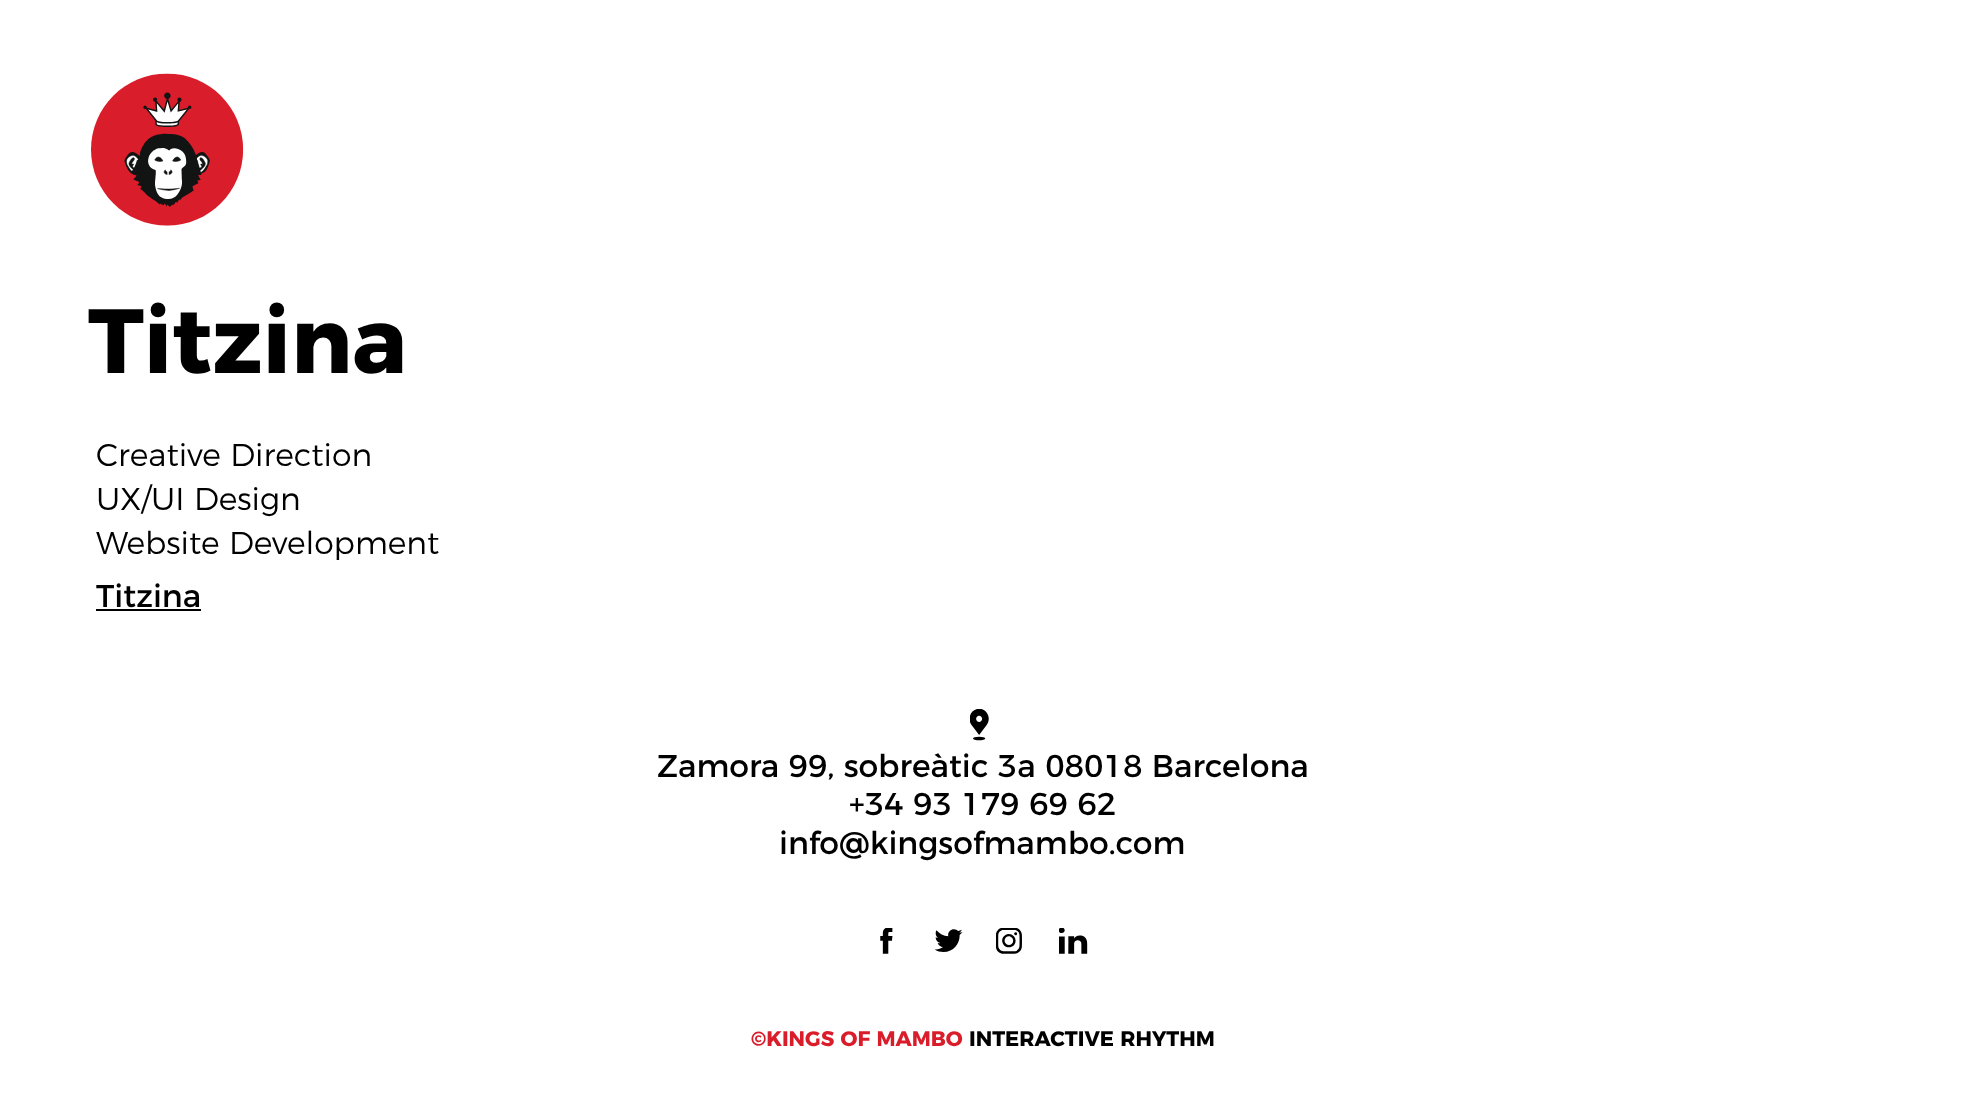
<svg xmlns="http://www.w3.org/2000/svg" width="1965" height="1110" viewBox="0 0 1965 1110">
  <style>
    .t1 { font: bold 91px Montserrat; fill: #000; }
    .t2 { font: 300 31.5px Montserrat; fill: #000; }
    .t3 { font: 31.5px Montserrat; fill: #000; }
    .t4 { font: bold 21px Montserrat; fill: #da1d2b; }
    .t5 { font: bold 21px Montserrat; fill: #000; }
  </style>
  <rect width="100%" height="100%" fill="#fff"/>
  <image x="91" y="73" width="153" height="153" href="images/1.png"/>
  <text x="88" y="373" class="t1">Titzina</text>
  <text x="96" y="466" class="t2">Creative Direction</text>
  <text x="96" y="510" class="t2">UX/UI Design</text>
  <text x="96" y="554" class="t2">Website Development</text>
  <text x="96" y="607" class="t3">Titzina</text>
  <rect x="96" y="609" width="105" height="2" fill="#000"/>
  <image x="970" y="709" width="19" height="32" href="images/2.png"/>
  <text x="657" y="777" class="t3">Zamora 99, sobreàtic 3a 08018 Barcelona</text>
  <text x="849" y="815" class="t3">+34 93 179 69 62</text>
  <text x="779" y="854" class="t3">info@kingsofmambo.com</text>
  <image x="880" y="928" width="13" height="26" href="images/3.png"/>
  <image x="935" y="929" width="28" height="23" href="images/4.png"/>
  <image x="996" y="928" width="26" height="26" href="images/5.png"/>
  <image x="1059" y="928" width="29" height="26" href="images/6.png"/>
  <text x="751" y="1046" class="t4">©KINGS OF MAMBO</text>
  <text x="969" y="1046" class="t5">INTERACTIVE RHYTHM</text>
</svg>
